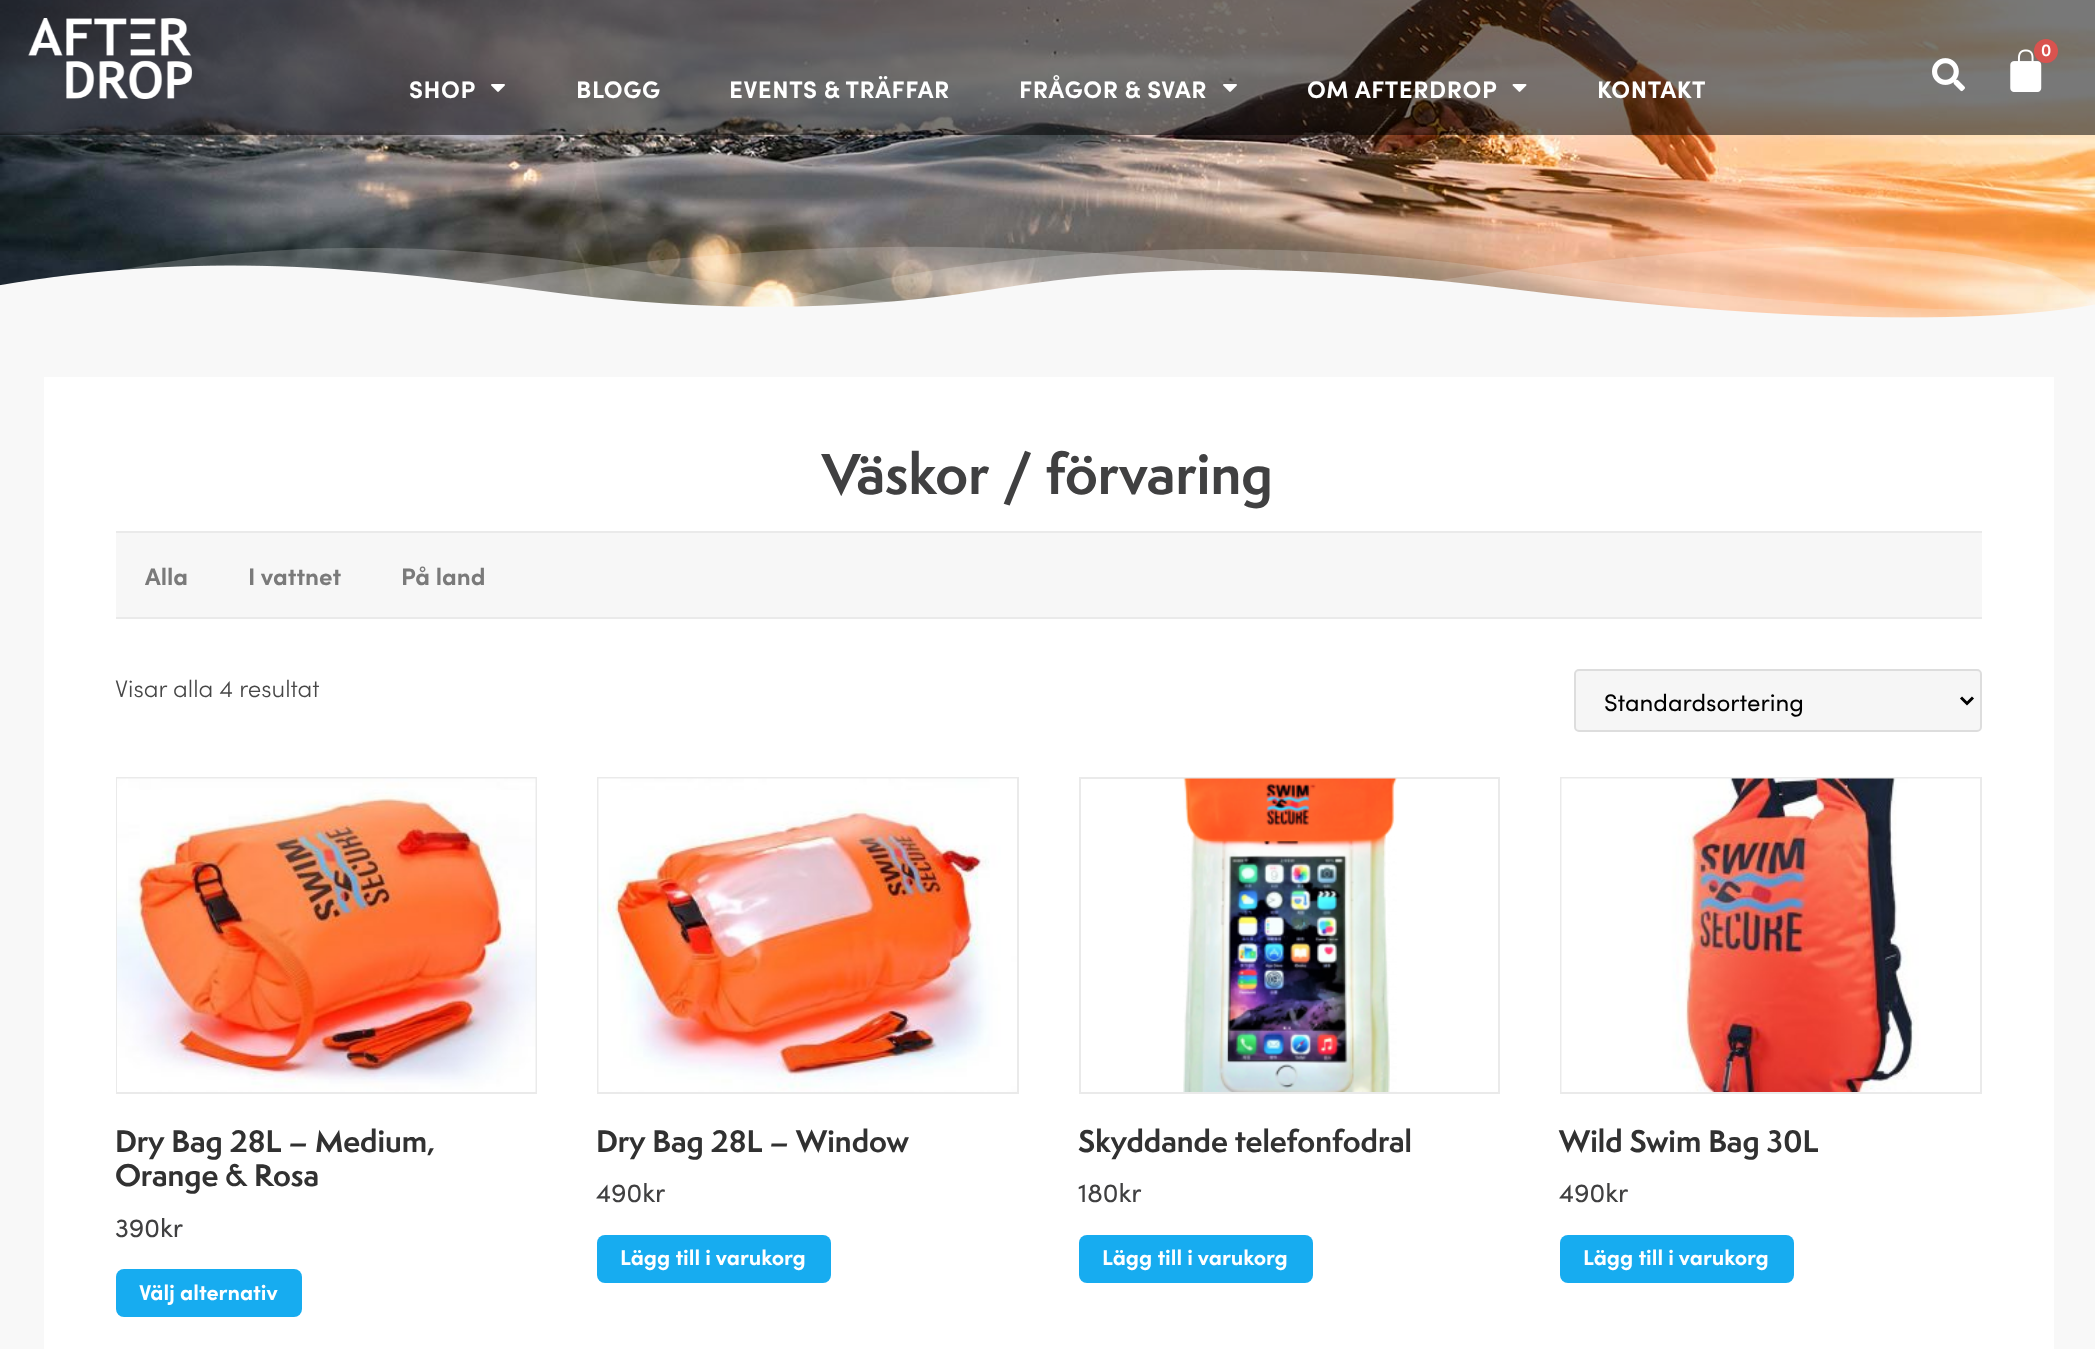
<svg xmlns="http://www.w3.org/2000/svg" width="2095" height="1349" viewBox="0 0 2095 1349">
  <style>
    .t1 { font: bold 15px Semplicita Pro; fill: #fff; }
    .t2 { font: bold 24px Sofia; letter-spacing: 0.6px; fill: #fff; }
    .t3 { font: bold 52.75px Semplicita Pro; fill: #404041; }
    .t4 { font: bold 24px Sofia; fill: #7a7a7a; }
    .t5 { font: 300 24px Sofia; fill: #474747; }
    .t6 { font: 24px Sofia; fill: #000; }
    .t7 { font: bold 28.75px Semplicita Pro; fill: #313131; }
    .t8 { font: 26.5px Sofia; fill: #404041; }
    .t9 { font: bold 21.5px Sofia; fill: #fff; }
  </style>
  <rect width="100%" height="100%" fill="#fff"/>
  <image x="0" y="0" width="2095" height="318" href="images/7.png"/>
  <rect x="0" y="0" width="2095" height="135" fill="#00000087"/>
  <image x="28" y="18" width="164" height="81" href="images/1.png"/>
  <image x="2010" y="49" width="32" height="43" href="images/2.png"/>
  <circle cx="2046" cy="51" r="12" fill="#d9534f"/>
  <text x="2041" y="56" class="t1">0</text>
  <text x="409" y="98" class="t2">SHOP</text>
  <image x="491" y="84" width="14" height="8" href="images/3.png"/>
  <text x="576" y="98" class="t2">BLOGG</text>
  <text x="729" y="98" class="t2">EVENTS &amp; TRÄFFAR</text>
  <text x="1019" y="98" class="t2">FRÅGOR &amp; SVAR</text>
  <image x="1223" y="84" width="14" height="8" href="images/4.png"/>
  <text x="1307" y="98" class="t2">OM AFTERDROP</text>
  <image x="1512" y="84" width="15" height="8" href="images/5.png"/>
  <text x="1597" y="98" class="t2">KONTAKT</text>
  <image x="1932" y="58" width="33" height="34" href="images/6.png"/>
  <image x="0" y="246" width="2095" height="77" href="images/8.png"/>
  <rect x="0" y="323" width="2095" height="1026" fill="#f8f8f8"/>
  <rect x="44" y="377" width="2010" height="972" fill="#fff"/>
  <text x="822" y="494" class="t3">Väskor / förvaring</text>
  <rect x="116" y="531" width="1866" height="2" fill="#eaeaea"/>
  <rect x="116" y="533" width="1866" height="84" fill="#f7f7f7"/>
  <rect x="116" y="617" width="1866" height="2" fill="#eaeaea"/>
  <text x="145" y="585" class="t4">Alla</text>
  <text x="248" y="585" class="t4">I vattnet</text>
  <text x="401" y="585" class="t4">På land</text>
  <text x="115" y="697" class="t5">Visar alla 4 resultat</text>
  <rect x="1575" y="670" width="406" height="61" rx="4" fill="#f6f6f6" stroke="#ddd" stroke-width="2"/>
  <path d="M1961 697.5L1967 703.5L1973 697.5" fill="none" stroke="#000" stroke-width="3"/>
  <text x="1604" y="711" class="t6">Standardsortering</text>
  <rect x="117" y="778" width="419" height="315" fill="none" stroke="#eaeaea" stroke-width="2"/>
  <image x="117" y="778" width="419" height="314" href="images/9.png"/>
  <text x="115" y="1152" class="t7">Dry Bag 28L – Medium,</text>
  <text x="115" y="1186" class="t7">Orange &amp; Rosa</text>
  <text x="115" y="1237" class="t8">390kr</text>
  <rect x="116" y="1269" width="186" height="48" rx="8" fill="#17acf0"/>
  <text x="139" y="1300" class="t9">Välj alternativ</text>
  <rect x="598" y="778" width="420" height="315" fill="none" stroke="#eaeaea" stroke-width="2"/>
  <image x="598" y="778" width="419" height="314" href="images/10.png"/>
  <text x="596" y="1152" class="t7">Dry Bag 28L – Window</text>
  <text x="596" y="1202" class="t8">490kr</text>
  <rect x="597" y="1235" width="234" height="48" rx="8" fill="#17acf0"/>
  <text x="620" y="1265" class="t9">Lägg till i varukorg</text>
  <rect x="1080" y="778" width="419" height="315" fill="none" stroke="#eaeaea" stroke-width="2"/>
  <image x="1183" y="778" width="214" height="314" href="images/11.png"/>
  <text x="1078" y="1152" class="t7">Skyddande telefonfodral</text>
  <text x="1078" y="1202" class="t8">180kr</text>
  <rect x="1079" y="1235" width="234" height="48" rx="8" fill="#17acf0"/>
  <text x="1102" y="1265" class="t9">Lägg till i varukorg</text>
  <rect x="1561" y="778" width="420" height="315" fill="none" stroke="#eaeaea" stroke-width="2"/>
  <image x="1561" y="778" width="419" height="314" href="images/12.png"/>
  <text x="1559" y="1152" class="t7">Wild Swim Bag 30L</text>
  <text x="1559" y="1202" class="t8">490kr</text>
  <rect x="1560" y="1235" width="234" height="48" rx="8" fill="#17acf0"/>
  <text x="1583" y="1265" class="t9">Lägg till i varukorg</text>
</svg>
